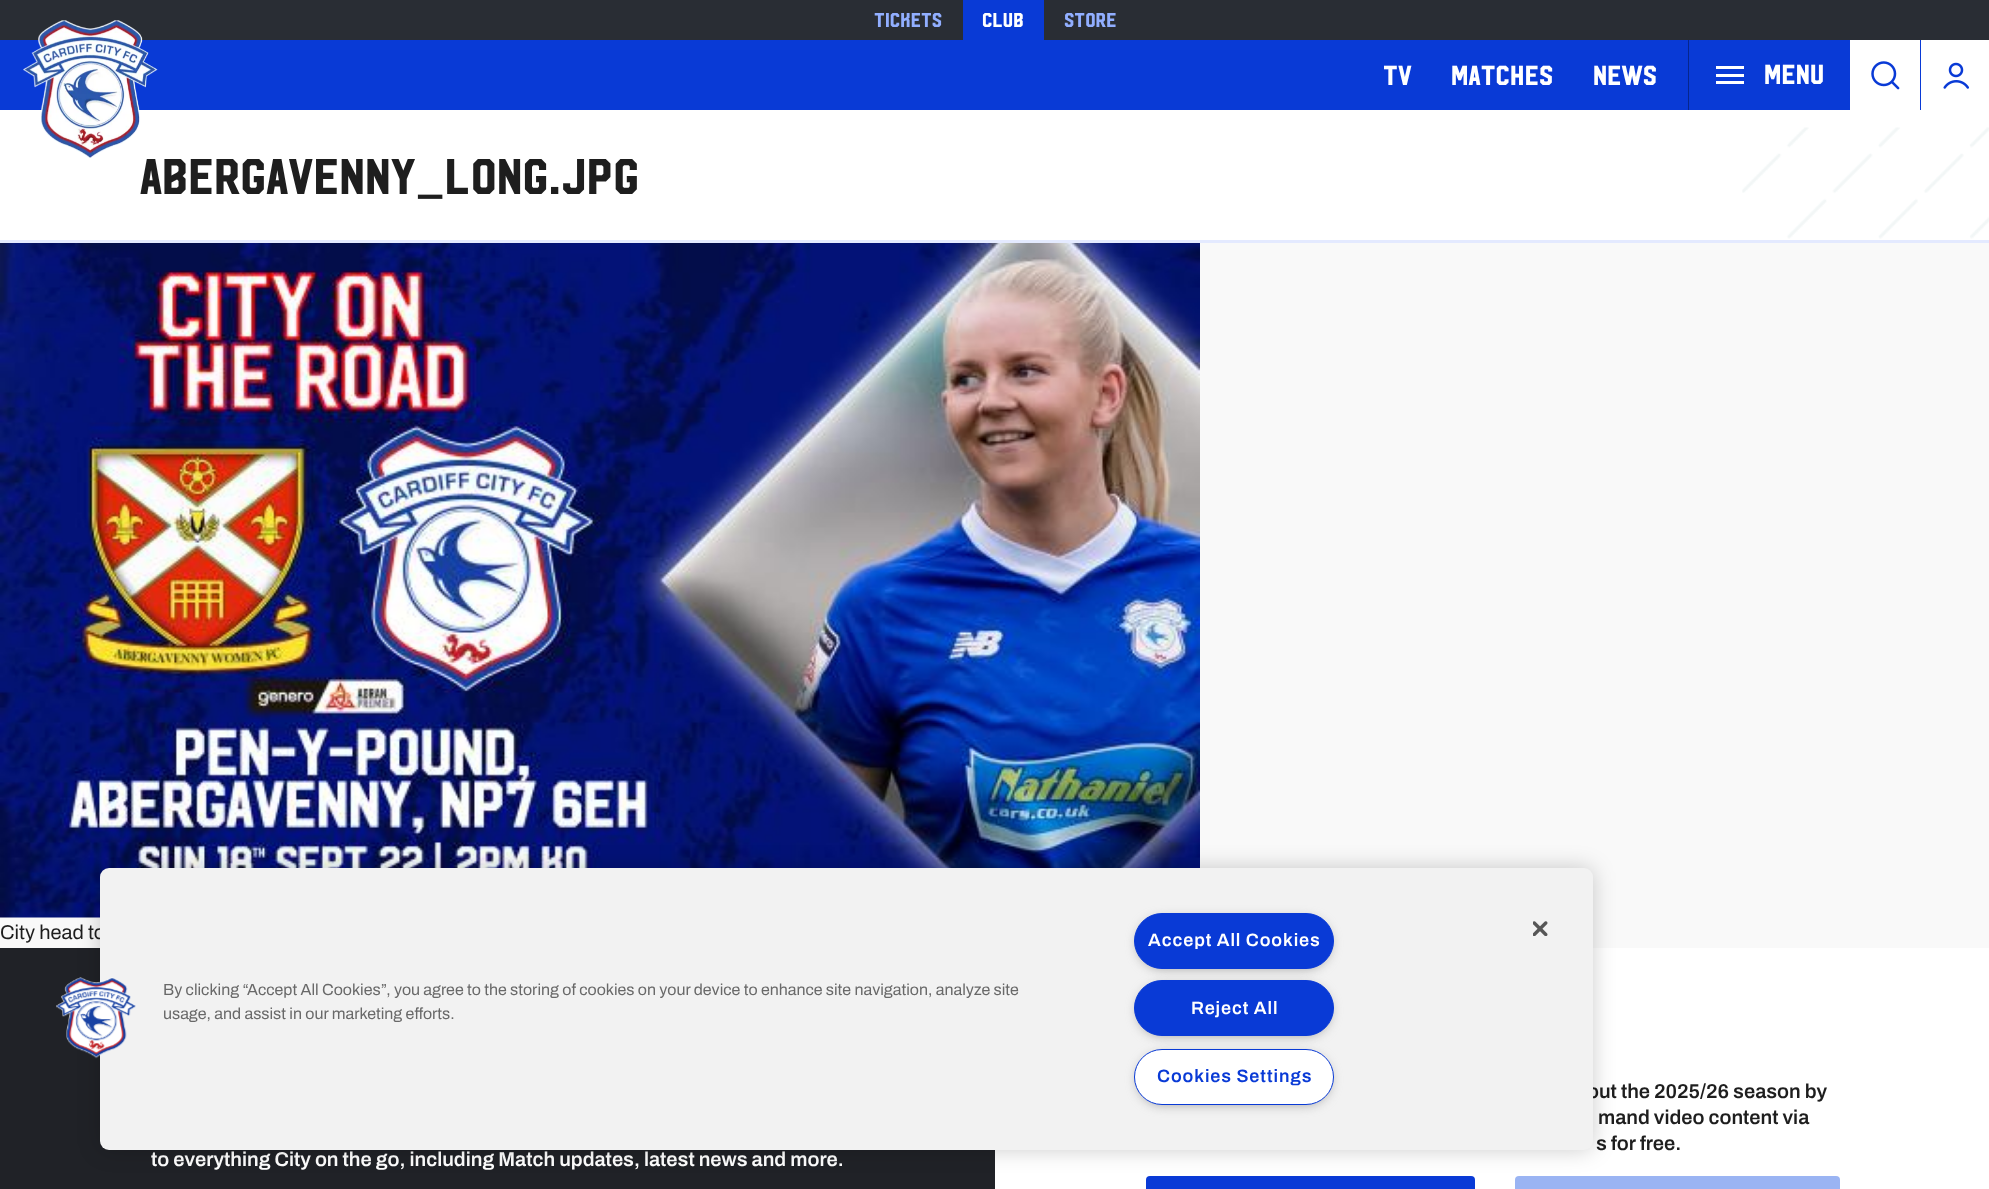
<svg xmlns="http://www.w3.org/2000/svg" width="1989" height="1189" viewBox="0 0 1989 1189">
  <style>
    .t1 { font: 20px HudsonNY; fill: #91aeff; }
    .t2 { font: 20px HudsonNY; fill: #fff; }
    .t3 { font: 27.5px HudsonNY; fill: #fff; }
    .t4 { font: 50px HudsonNY; fill: #1e1e1e; }
    .t5 { font: 20px Archivo; fill: #1e1e1e; }
    .t6 { font: 600 20px Archivo; fill: #1e1e1e; }
    .t7 { font: 600 20px Archivo; fill: #fff; }
    .t8 { font: 16px Archivo; fill: #696969; }
    .t9 { font: 600 18px Archivo; letter-spacing: 0.9px; fill: #fff; }
    .t10 { font: 600 18px Archivo; letter-spacing: 0.9px; fill: #093ad6; }
  </style>
  <rect width="100%" height="100%" fill="#f9f9f9"/>
  <rect x="0" y="0" width="1989" height="40" fill="#292d34"/>
  <text x="874" y="27" class="t1">Tickets</text>
  <rect x="963" y="0" width="81" height="40" fill="#093ad6"/>
  <text x="982" y="27" class="t2">Club</text>
  <text x="1064" y="27" class="t1">Store</text>
  <rect x="0" y="40" width="1921" height="70" fill="#093ad6"/>
  <rect x="0" y="110" width="1989" height="130" fill="#fff"/>
  <image x="23" y="20" width="135" height="138" href="images/1.png"/>
  <text x="1383" y="85" class="t3">TV</text>
  <text x="1451" y="85" class="t3">Matches</text>
  <text x="1593" y="85" class="t3">News</text>
  <rect x="1688" y="40" width="1" height="70" fill="#06268d"/>
  <rect x="1716" y="74" width="28" height="3" fill="#fff"/>
  <rect x="1716" y="66" width="28" height="3" fill="#fff"/>
  <rect x="1716" y="81" width="28" height="3" fill="#fff"/>
  <text x="1764" y="84" class="t3">Menu</text>
  <rect x="1850" y="40" width="70" height="70" fill="#fff"/>
  <image x="1871" y="61" width="29" height="29" href="images/2.png"/>
  <rect x="1921" y="40" width="68" height="70" fill="#fff"/>
  <image x="1943" y="62" width="26" height="27" href="images/3.png"/>
  <image x="1742" y="127" width="247" height="112" href="images/4.png"/>
  <rect x="0" y="240" width="1989" height="3" fill="#e4eaff"/>
  <text x="140" y="194" class="t4">abergavenny_long.jpg</text>
  <image x="0" y="243" width="1200" height="675" href="images/5.png"/>
  <text x="0" y="939" class="t5">City head to</text>
  <rect x="995" y="948" width="994" height="241" fill="#fff"/>
  <text x="1587" y="1098" class="t6">out the 2025/26 season by</text>
  <text x="1598" y="1124" class="t6">mand video content via</text>
  <text x="1596" y="1150" class="t6">s for free.</text>
  <rect x="1146" y="1176" width="329" height="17" rx="4" fill="#093ad6"/>
  <rect x="1515" y="1176" width="325" height="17" rx="4" fill="#9ab4f3"/>
  <rect x="0" y="948" width="995" height="241" fill="#202227"/>
  <text x="151" y="1166" class="t7">to everything City on the go, including Match updates, latest news and more.</text>
  <rect x="100" y="868" width="1493" height="282" rx="9" fill="#00000033" filter="blur(11px)"/>
  <rect x="100" y="868" width="1493" height="282" rx="9" fill="#f2f2f2"/>
  <image x="56" y="977" width="80" height="82" href="images/6.png"/>
  <image x="1533" y="921" width="15" height="15" href="images/7.png"/>
  <text x="163" y="995" class="t8">By clicking “Accept All Cookies”, you agree to the storing of cookies on your device to enhance site navigation, analyze site</text>
  <text x="163" y="1019" class="t8">usage, and assist in our marketing efforts.</text>
  <rect x="1138" y="919" width="192" height="49" rx="24.5" fill="#999" filter="blur(6px)"/>
  <rect x="1134.5" y="913.5" width="199" height="55" rx="27.5" fill="#093ad6" stroke="#093ad6"/>
  <text x="1148" y="946" class="t9">Accept All Cookies</text>
  <rect x="1138" y="986" width="192" height="49" rx="24.5" fill="#999" filter="blur(6px)"/>
  <rect x="1134.5" y="980.5" width="199" height="55" rx="27.5" fill="#093ad6" stroke="#093ad6"/>
  <text x="1191" y="1014" class="t9">Reject All</text>
  <rect x="1138" y="1055" width="192" height="49" rx="24.5" fill="#999" filter="blur(6px)"/>
  <rect x="1134.5" y="1049.5" width="199" height="55" rx="27.5" fill="#fff" stroke="#093ad6"/>
  <text x="1157" y="1082" class="t10">Cookies Settings</text>
</svg>
